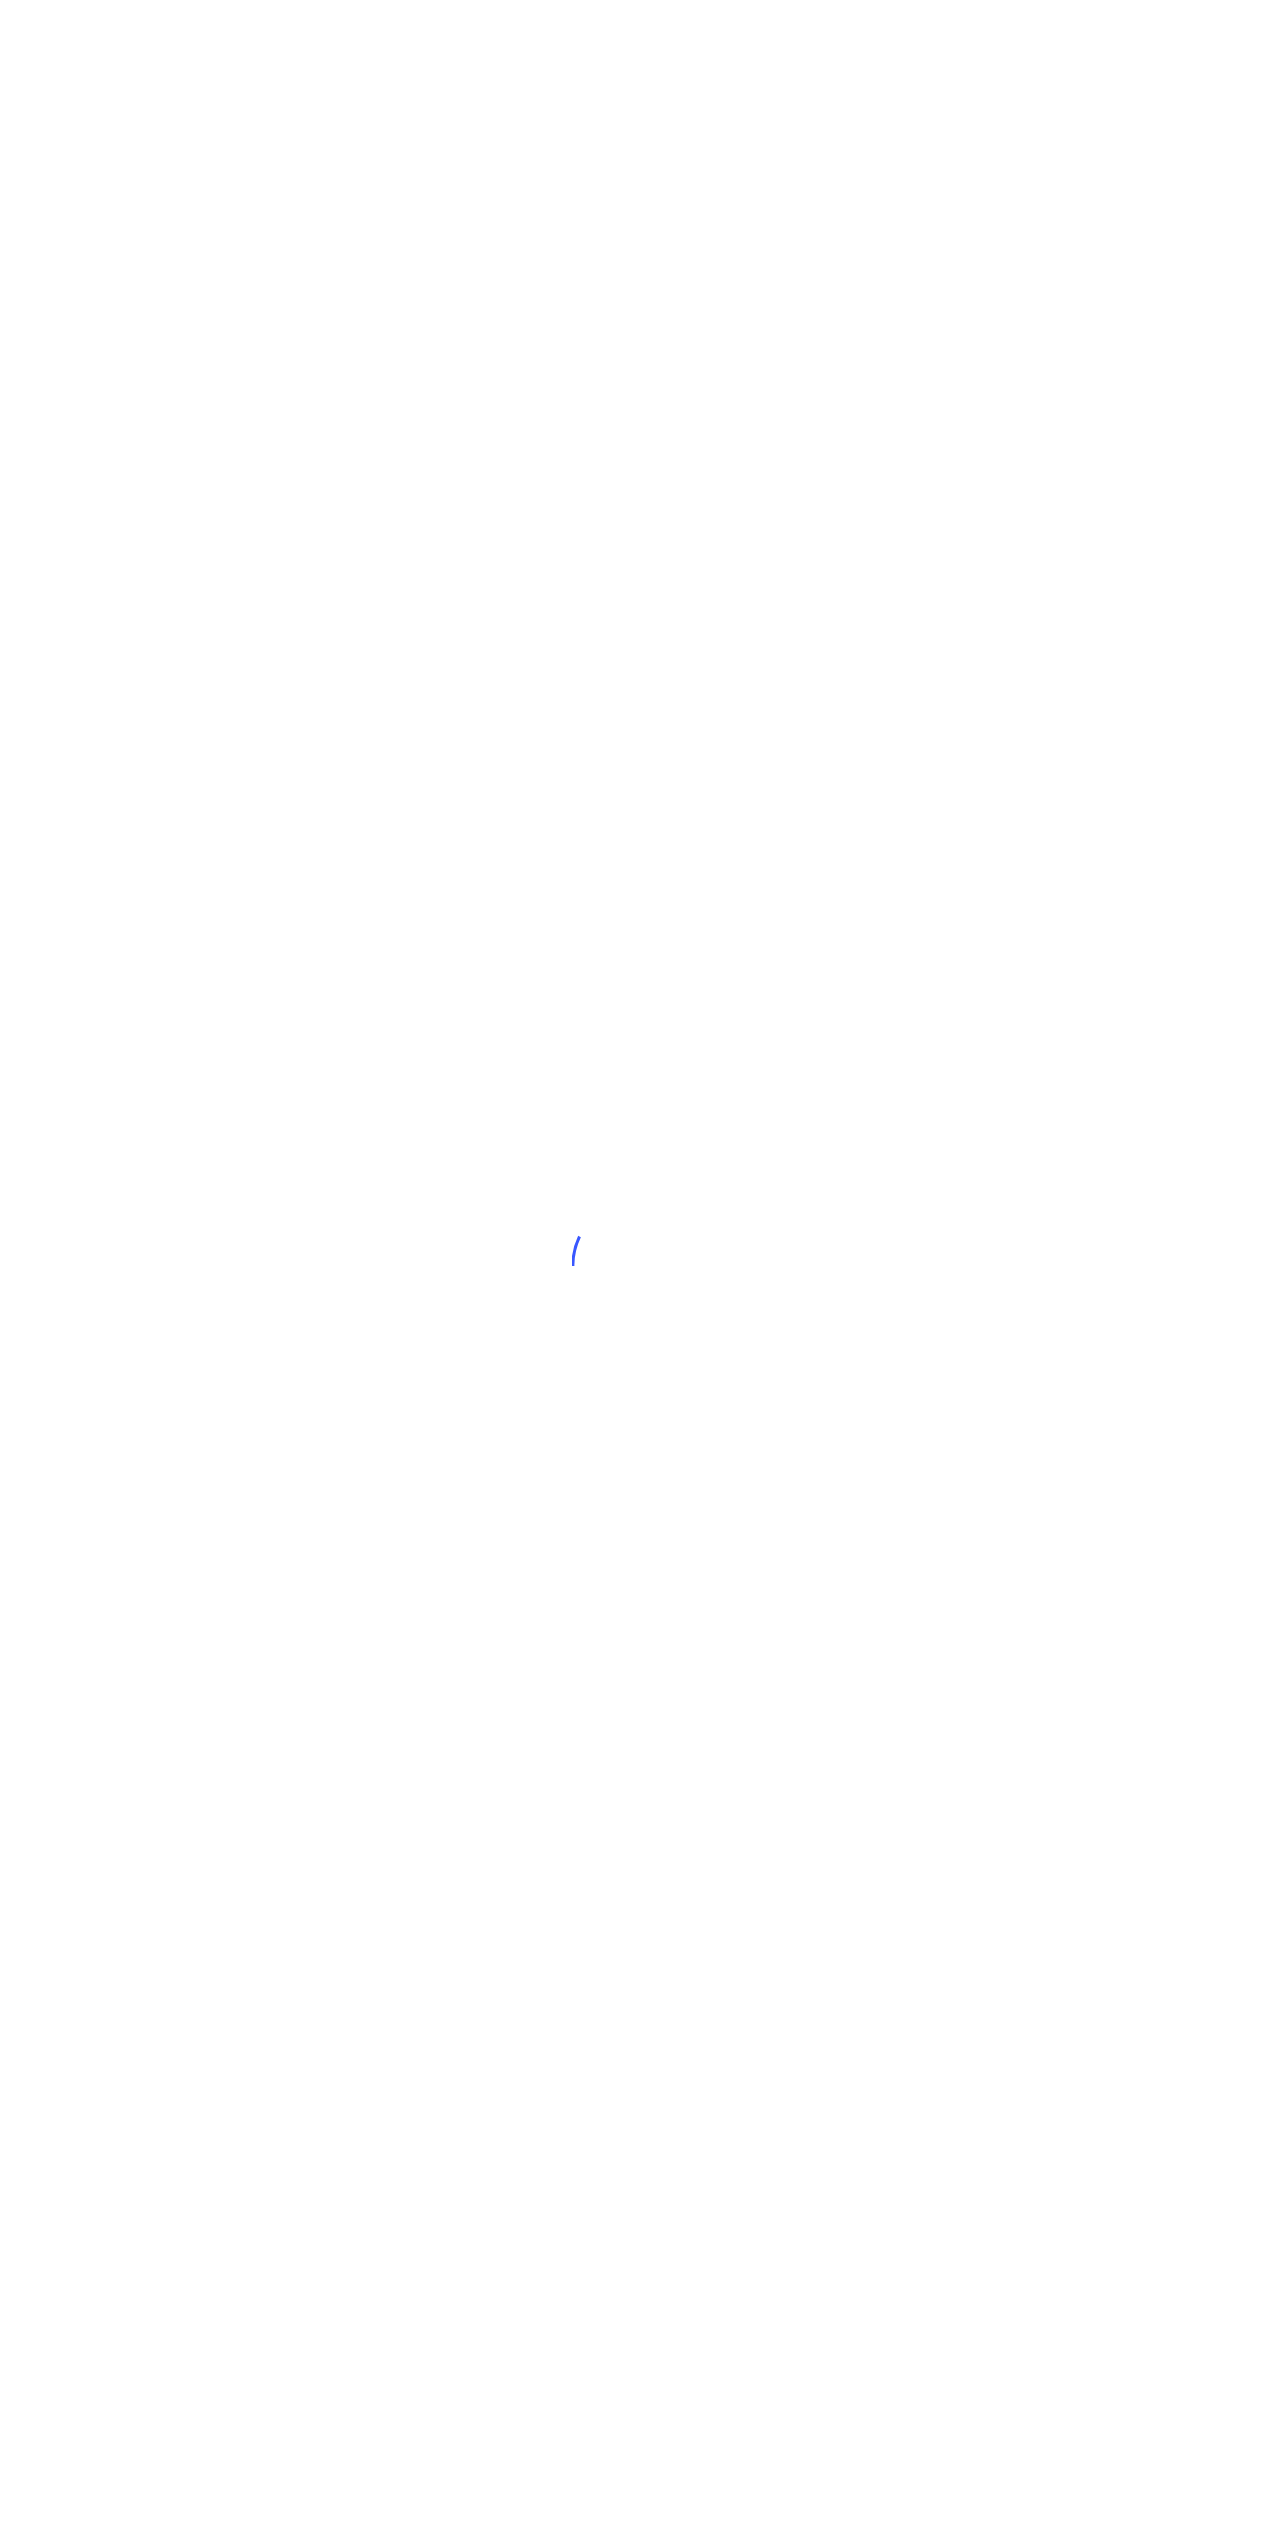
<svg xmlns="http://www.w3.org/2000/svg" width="1283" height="2531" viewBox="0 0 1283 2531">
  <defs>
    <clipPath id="clip1"><rect x="572" y="1196" width="140" height="70"/></clipPath>
  </defs>
  <rect width="100%" height="100%" fill="#fff"/>
  <g clip-path="url(#clip1)">
    <path d="M612.5 1327.5C578.5 1312 563.5 1270.5 579.5 1236.5" fill="none" stroke="#3957ff" stroke-width="3"/>
  </g>
</svg>
